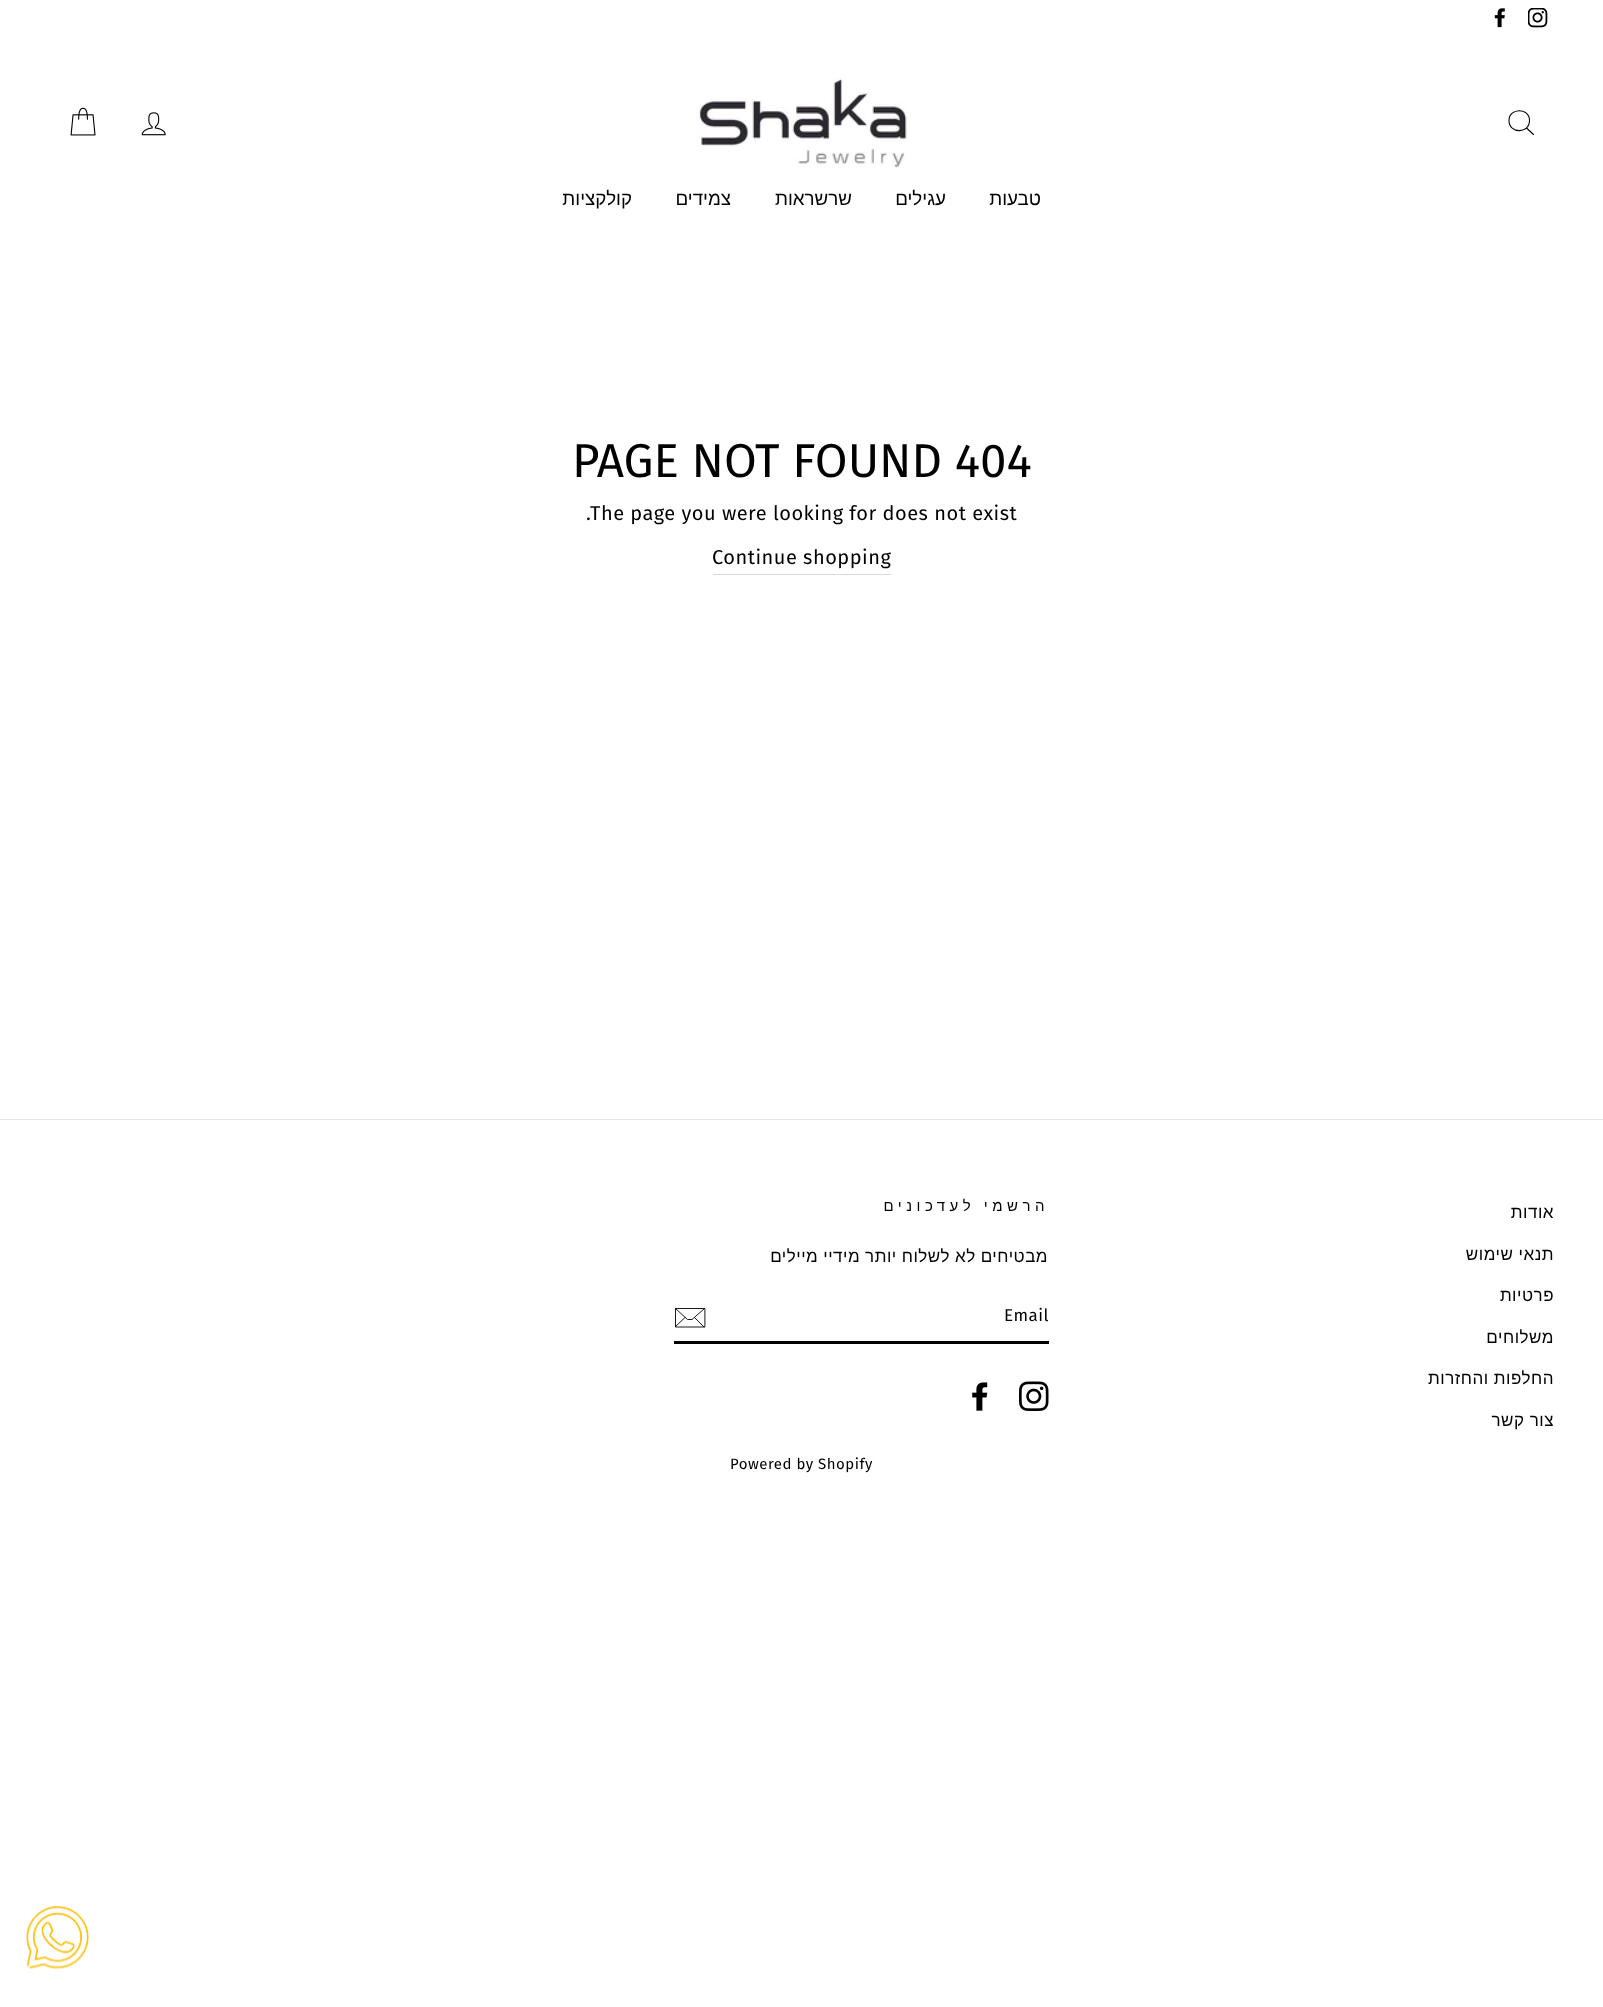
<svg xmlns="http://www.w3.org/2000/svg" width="1603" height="2007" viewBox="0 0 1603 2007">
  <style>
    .t1 { font: 18.75px Liberation Sans; direction: rtl; fill: #000; }
    .t2 { font: 47.5px Fira Sans; fill: #000; }
    .t3 { font: 20px Fira Sans; letter-spacing: 0.5px; fill: #000; }
    .t4 { font: 17px Liberation Sans; letter-spacing: 0.5px; direction: rtl; fill: #000; }
    .t5 { font: 15px Liberation Sans; letter-spacing: 4.5px; direction: rtl; fill: #000; }
    .t6 { font: 17px Fira Sans; letter-spacing: 0.5px; fill: #000; }
    .t7 { font: 15px Fira Sans; letter-spacing: 0.5px; fill: #000; }
  </style>
  <rect width="100%" height="100%" fill="#fff"/>
  <image x="1528" y="8" width="20" height="20" href="images/1.png"/>
  <image x="1494" y="8" width="11" height="20" href="images/2.png"/>
  <rect x="0" y="40" width="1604" height="204" fill="#00000033" filter="blur(0.5px)"/>
  <rect x="0" y="40" width="1603" height="204" fill="#fff"/>
  <path d="M1529.5 120.5C1529.5 134 1509 134 1509 120.5C1509 107.5 1529.5 107.5 1529.5 120.5ZM1533.5 134.5L1526.5 128" fill="none" stroke="#000" stroke-width="1.1" stroke-linecap="round" stroke-linejoin="round"/>
  <image x="696" y="78" width="211" height="90" href="images/3.png"/>
  <image x="141" y="112" width="25" height="24" href="images/4.png"/>
  <image x="70" y="107" width="26" height="29" href="images/5.png"/>
  <text x="1041" y="205" class="t1">טבעות</text>
  <text x="946" y="205" class="t1">עגילים</text>
  <text x="852" y="205" class="t1">שרשראות</text>
  <text x="731" y="205" class="t1">צמידים</text>
  <text x="632" y="205" class="t1">קולקציות</text>
  <text x="572" y="477" class="t2">PAGE NOT FOUND 404</text>
  <text x="586" y="520" class="t3">.The page you were looking for does not exist</text>
  <rect x="713" y="574" width="178" height="1" fill="#d9d9d9"/>
  <text x="712" y="564" class="t3">Continue shopping</text>
  <rect x="0" y="1119" width="1603" height="1" fill="#e8e8e1"/>
  <text x="1554" y="1218" class="t4">אודות</text>
  <text x="1554" y="1260" class="t4">תנאי שימוש</text>
  <text x="1554" y="1301" class="t4">פרטיות</text>
  <text x="1554" y="1343" class="t4">משלוחים</text>
  <text x="1554" y="1384" class="t4">החלפות והחזרות</text>
  <text x="1554" y="1426" class="t4">צור קשר</text>
  <text x="1049" y="1211" class="t5">הרשמי לעדכונים</text>
  <text x="1048" y="1262" word-spacing="-0.25" class="t4">מבטיחים לא לשלוח יותר מידיי מיילים</text>
  <rect x="674" y="1341" width="375" height="3" fill="#000"/>
  <text x="1004" y="1321" class="t6">Email</text>
  <path d="M704.5 1327H675.5V1308.5H704.5ZM675.5 1308.5L687.5 1319.5H692L704.5 1308.5M685 1317.5L675.5 1326.5M704 1327L694.5 1317.5" fill="none" stroke="#000" stroke-width="0.9" stroke-linecap="round" stroke-linejoin="round"/>
  <image x="1019" y="1381" width="30" height="30" href="images/6.png"/>
  <image x="972" y="1382" width="16" height="29" href="images/7.png"/>
  <text x="730" y="1469" class="t7">Powered by Shopify</text>
  <image x="26" y="1906" width="63" height="64" href="images/8.png"/>
</svg>
